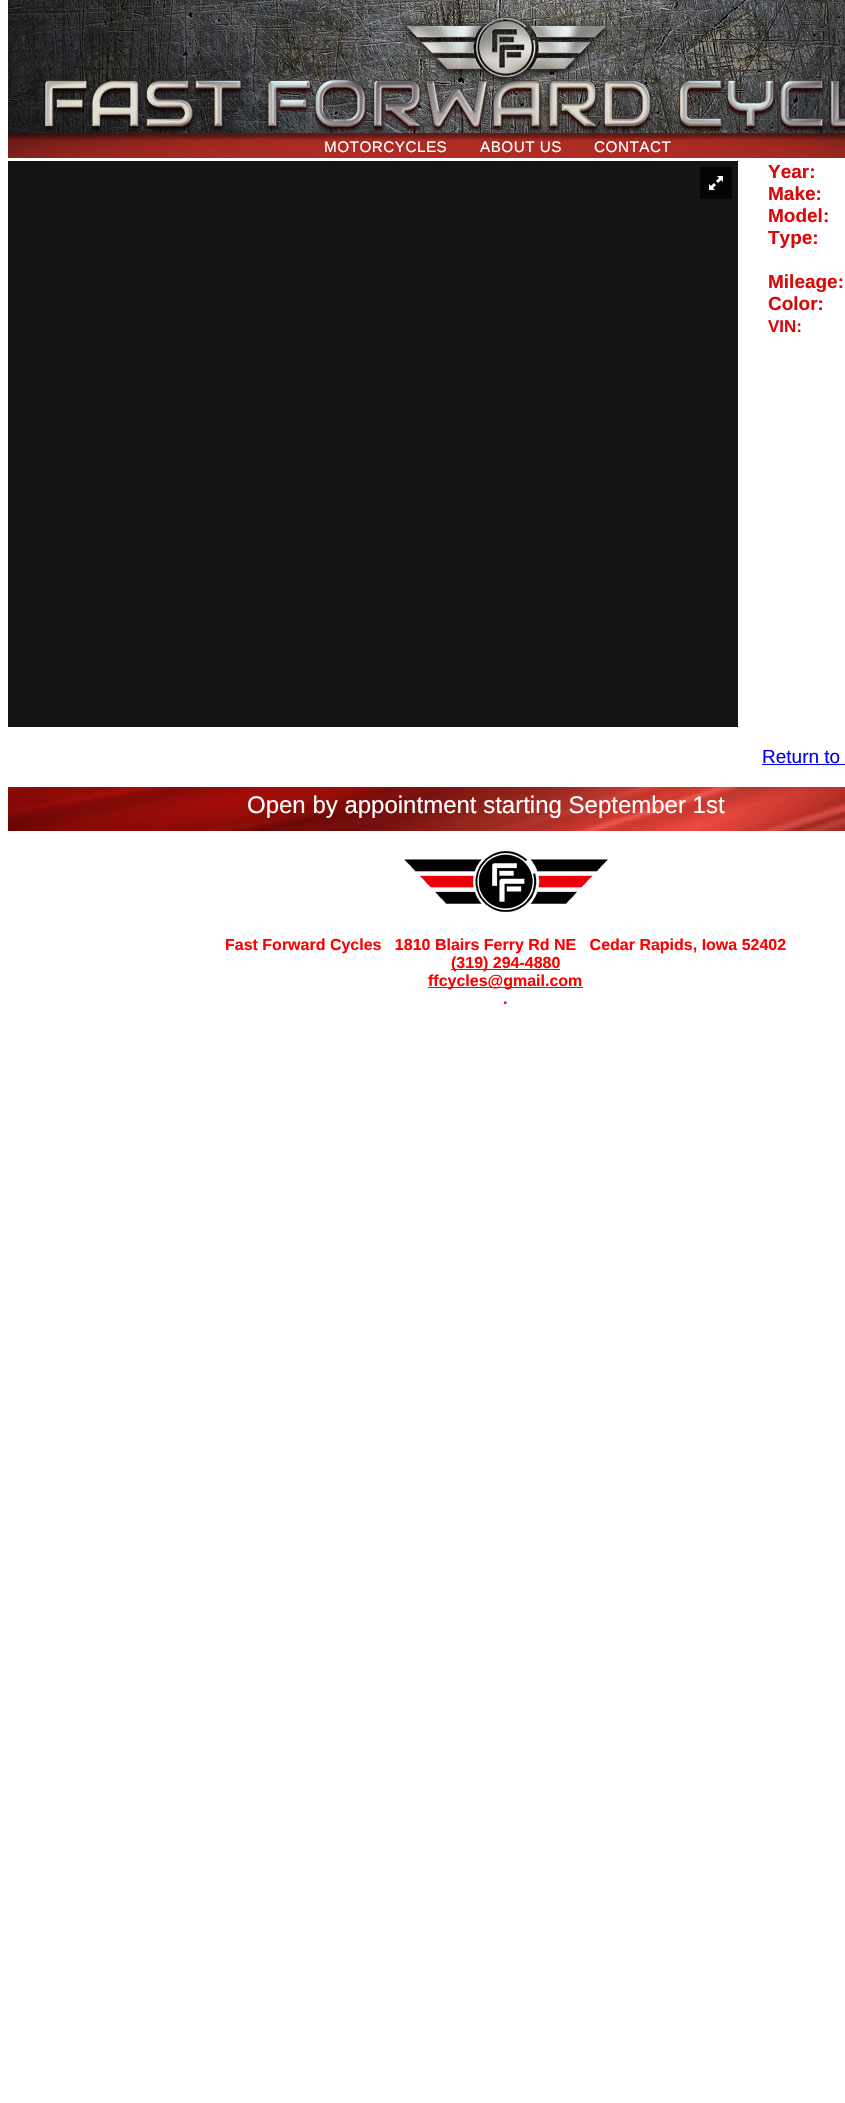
#include "include/core/SkBlurTypes.h"
#include "include/core/SkCanvas.h"
#include "include/core/SkData.h"
#include "include/core/SkFont.h"
#include "include/core/SkFontMgr.h"
#include "include/core/SkImage.h"
#include "include/core/SkMaskFilter.h"
#include "include/core/SkPaint.h"
#include "include/core/SkPathBuilder.h"
#include "include/core/SkTextBlob.h"
#include "include/effects/SkDashPathEffect.h"
#include "include/effects/SkGradientShader.h"
#include "include/utils/SkParsePath.h"

extern sk_sp<SkFontMgr> fontMgr;

void draw(SkCanvas* canvas) {
    SkPaint p;
    p.setAntiAlias(true);
    auto font = [&](const char* family, int weight, float size, bool italic = false) {
        SkFontStyle style(weight, SkFontStyle::kNormal_Width,
            italic ? SkFontStyle::kItalic_Slant : SkFontStyle::kUpright_Slant);
        SkFont result(fontMgr->matchFamilyStyle(family, style), size);
        result.setSubpixel(true);
        return result;
    };
    auto drawTracked = [&](const char* s, float x, float y, const SkFont& font, const SkPaint& ink, float letter, float word) {
        std::vector<SkGlyphID> glyphs(font.countText(s, strlen(s), SkTextEncoding::kUTF8));
        std::vector<float> xs(glyphs.size());
        font.textToGlyphs(s, strlen(s), SkTextEncoding::kUTF8, glyphs);
        font.getXPos(glyphs, xs, x);
        float extra = 0;
        for (size_t i = 0; i < glyphs.size(); i++) {
            xs[i] += extra;
            extra += letter + word * (glyphs[i] == font.unicharToGlyph(' '));
        }
        canvas->drawTextBlob(SkTextBlob::MakeFromPosHGlyphs(glyphs, xs, y, font), 0, 0, ink);
    };
    auto drawPhoto = [&](const char* path, float l, float t, float r, float b) {
        auto image = SkImages::DeferredFromEncodedData(SkData::MakeFromFileName(path));
        canvas->drawImageRect(image, SkRect::MakeLTRB(l, t, r, b), SkSamplingOptions());
    };
    canvas->clear(0xFFFFFFFF);
    drawPhoto("media/1.png", 8, 0, 845, 133);
    drawPhoto("media/2.png", 8, 133, 845, 158);
    auto font1 = font("Liberation Sans", 400, 15.25f);
    p.setColor(0xFFFFFFFF);
    {
        const struct { const char* s; float x, y; } items[] = {
            {"MOTORCYCLES", 324, 152},
            {"ABOUT US", 480, 152},
            {"CONTACT", 594, 152},
        };
        for (auto [s, x, y] : items) {
            drawTracked(s, x, y, font1, p, 0.5f, 0);
        }
    }
    p.setColor(0xFF151515);
    canvas->drawRect(SkRect::MakeLTRB(8, 161, 738, 727), p);
    p.setColor(0xFF050505);
    canvas->drawRoundRect(SkRect::MakeLTRB(700, 167, 732, 199), 2, 2, p);
    drawPhoto("media/3.png", 709, 176, 723, 190);
    auto font2 = font("Liberation Sans", 700, 19);
    p.setColor(0xFFD70808);
    {
        const struct { const char* s; float x, y; } items[] = {
            {"Year:", 768, 178},
            {"Make:", 768, 200},
            {"Model:", 768, 222},
            {"Type:", 768, 244},
            {"Mileage:", 768, 288},
            {"Color:", 768, 310},
        };
        for (auto [s, x, y] : items) {
            canvas->drawString(s, x, y, font2, p);
        }
    }
    auto font3 = font("Liberation Sans", 700, 17);
    canvas->drawString("VIN:", 768, 332, font3, p);
    auto font4 = font("Liberation Sans", 400, 19);
    p.setColor(0xFF0000EE);
    canvas->drawString("Return to", 762, 763, font4, p);
    canvas->drawRect(SkRect::MakeLTRB(762, 764, 845, 765), p);
    drawPhoto("media/4.png", 8, 787, 845, 831);
    auto font5 = font("Liberation Sans", 400, 24);
    p.setColor(0xFFFFFFFF);
    canvas->drawString("Open by appointment starting September 1st", 247, 813, font5, p);
    drawPhoto("media/5.png", 404, 851, 608, 912);
    auto font6 = font("Liberation Sans", 700, 16);
    p.setColor(0xFFFF0000);
    canvas->drawString("Fast Forward Cycles   1810 Blairs Ferry Rd NE   Cedar Rapids, Iowa 52402", 225, 950, font6, p);
    canvas->drawRect(SkRect::MakeLTRB(451, 969, 560, 970), p);
    canvas->drawString("(319) 294-4880", 451, 968, font6, p);
    canvas->drawRect(SkRect::MakeLTRB(428, 987, 583, 988), p);
    canvas->drawString("ffcycles@gmail.com", 428, 986, font6, p);
    canvas->drawString(".", 503, 1004, font6, p);
}
